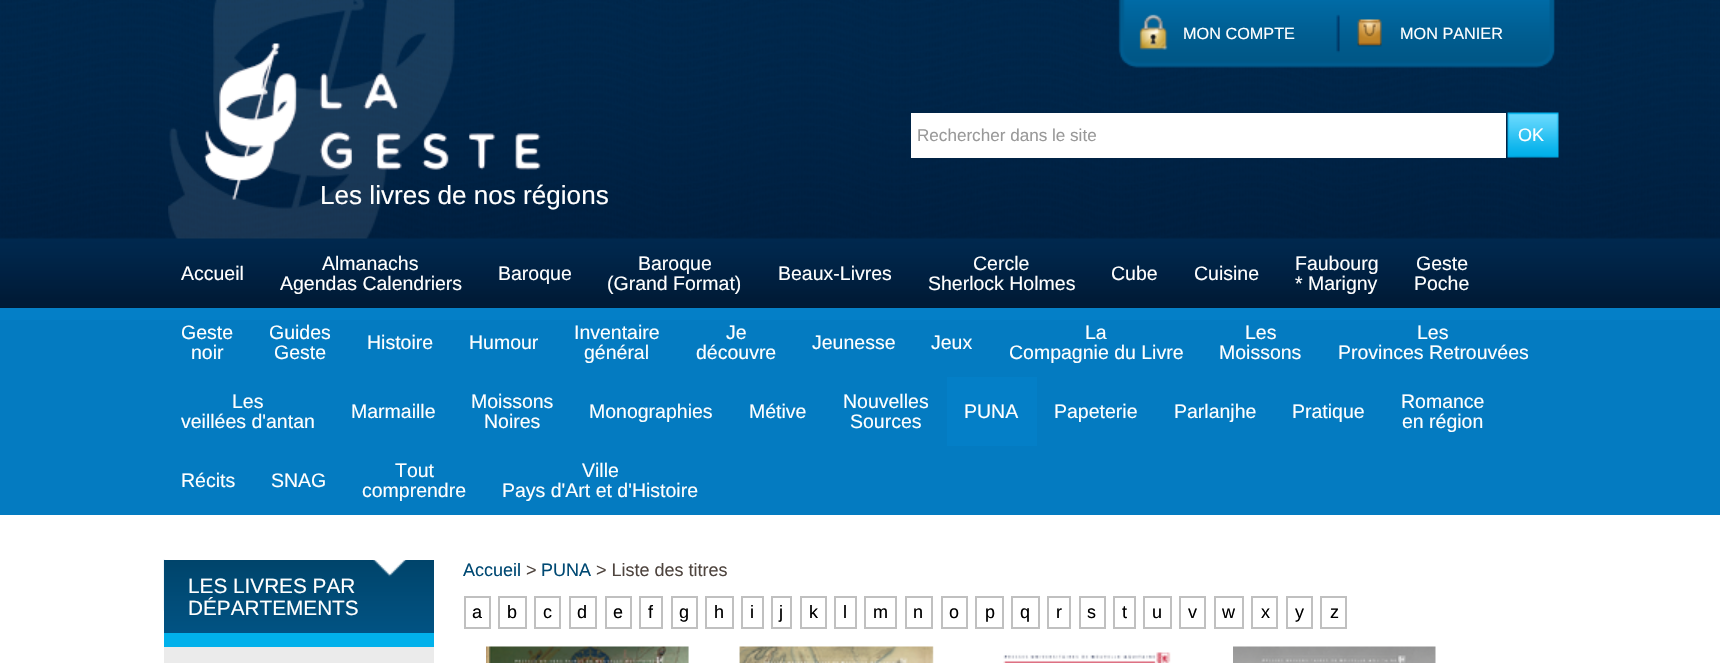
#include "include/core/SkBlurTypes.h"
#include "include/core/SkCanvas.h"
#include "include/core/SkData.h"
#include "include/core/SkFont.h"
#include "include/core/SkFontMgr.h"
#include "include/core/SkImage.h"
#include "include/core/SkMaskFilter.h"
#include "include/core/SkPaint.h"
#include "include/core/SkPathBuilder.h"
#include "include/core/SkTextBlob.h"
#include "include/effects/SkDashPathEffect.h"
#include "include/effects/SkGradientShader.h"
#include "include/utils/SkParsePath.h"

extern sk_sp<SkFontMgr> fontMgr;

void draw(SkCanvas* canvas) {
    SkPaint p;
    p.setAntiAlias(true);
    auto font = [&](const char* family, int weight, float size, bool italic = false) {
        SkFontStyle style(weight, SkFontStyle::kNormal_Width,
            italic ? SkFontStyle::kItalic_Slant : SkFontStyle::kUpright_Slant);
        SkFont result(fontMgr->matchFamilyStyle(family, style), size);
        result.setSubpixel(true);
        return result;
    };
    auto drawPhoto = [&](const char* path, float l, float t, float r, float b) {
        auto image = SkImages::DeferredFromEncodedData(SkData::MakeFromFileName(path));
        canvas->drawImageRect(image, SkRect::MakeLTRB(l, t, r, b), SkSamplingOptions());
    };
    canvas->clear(0xFF047BC1);
    drawPhoto("media/1.png", 0, 0, 1720, 308);
    p.setColor(0xFF047FC7);
    canvas->drawRect(SkRect::MakeLTRB(0, 308, 1720, 320), p);
    drawPhoto("media/2.png", 204, 43, 541, 200);
    drawPhoto("media/3.png", 1118, 0, 1555, 68);
    drawPhoto("media/4.png", 1139, 14, 1168, 50);
    auto font1 = font("Liberation Sans", 400, 16.25f);
    p.setColor(0xFFFFFFFF);
    canvas->drawString("MON COMPTE", 1183, 39, font1, p);
    drawPhoto("media/5.png", 1357, 19, 1382, 47);
    canvas->drawString("MON PANIER", 1400, 39, font1, p);
    canvas->drawRect(SkRect::MakeLTRB(911, 113, 1506, 158), p);
    auto font2 = font("Liberation Sans", 400, 17.1f);
    p.setColor(0xFF999999);
    canvas->drawString("Rechercher dans le site", 917, 141, font2, p);
    drawPhoto("media/6.png", 1507, 112, 1559, 158);
    auto font3 = font("Liberation Sans", 400, 18);
    p.setColor(0xFFFFFFFF);
    canvas->drawString("OK", 1518, 141, font3, p);
    drawPhoto("media/7.png", 168, 0, 455, 239);
    auto font4 = font("Liberation Sans", 400, 26.1f);
    canvas->drawString("Les livres de nos régions", 320, 204, font4, p);
    auto font5 = font("Liberation Sans", 400, 19.5f);
    {
        const struct { const char* s; float x, y; } items[] = {
            {"Accueil", 181, 280},
            {"Almanachs", 322, 270},
            {"Agendas Calendriers", 280, 290},
            {"Baroque", 498, 280},
            {"Baroque", 638, 270},
            {"(Grand Format)", 607, 290},
            {"Beaux-Livres", 778, 280},
            {"Cercle", 973, 270},
            {"Sherlock Holmes", 928, 290},
            {"Cube", 1111, 280},
            {"Cuisine", 1194, 280},
            {"Faubourg", 1295, 270},
            {"* Marigny", 1295, 290},
            {"Geste", 1416, 270},
            {"Poche", 1414, 290},
            {"Geste", 181, 339},
            {"noir", 191, 359},
            {"Guides", 269, 339},
            {"Geste", 274, 359},
            {"Histoire", 367, 349},
            {"Humour", 469, 349},
            {"Inventaire", 574, 339},
            {"général", 584, 359},
            {"Je", 726, 339},
            {"découvre", 696, 359},
            {"Jeunesse", 812, 349},
            {"Jeux", 931, 349},
            {"La", 1085, 339},
            {"Compagnie du Livre", 1009, 359},
            {"Les", 1245, 339},
            {"Moissons", 1219, 359},
            {"Les", 1417, 339},
            {"Provinces Retrouvées", 1338, 359},
            {"Les", 232, 408},
            {"veillées d'antan", 181, 428},
            {"Marmaille", 351, 418},
            {"Moissons", 471, 408},
            {"Noires", 484, 428},
            {"Monographies", 589, 418},
            {"Métive", 749, 418},
            {"Nouvelles", 843, 408},
            {"Sources", 850, 428},
        };
        for (auto [s, x, y] : items) {
            canvas->drawString(s, x, y, font5, p);
        }
    }
    p.setColor(0xFF047FC7);
    canvas->drawRect(SkRect::MakeLTRB(947, 377, 1037, 446), p);
    p.setColor(0xFFFFFFFF);
    {
        const struct { const char* s; float x, y; } items[] = {
            {"PUNA", 964, 418},
            {"Papeterie", 1054, 418},
            {"Parlanjhe", 1174, 418},
            {"Pratique", 1292, 418},
            {"Romance", 1401, 408},
            {"en région", 1402, 428},
            {"Récits", 181, 487},
            {"SNAG", 271, 487},
            {"Tout", 395, 477},
            {"comprendre", 362, 497},
            {"Ville", 582, 477},
            {"Pays d'Art et d'Histoire", 502, 497},
        };
        for (auto [s, x, y] : items) {
            canvas->drawString(s, x, y, font5, p);
        }
    }
    canvas->drawRect(SkRect::MakeLTRB(0, 515, 1720, 663), p);
    p.setColor(0xFFEBEBEB);
    canvas->drawRect(SkRect::MakeLTRB(164, 647, 434, 663), p);
    {
        const SkColor colors[] = {0xFF00446B, 0xFF015383};
        const float stops[] = {0, 1};
        const SkPoint ends[] = {{299, 560}, {299, 633}};
        p.setShader(SkGradientShader::MakeLinear(ends, colors, stops, 2, SkTileMode::kClamp));
        p.setAlpha(255);
    }
    canvas->drawRect(SkRect::MakeLTRB(164, 560, 434, 633), p);
    p.setShader(nullptr);
    p.setColor(0xFF01B1EB);
    canvas->drawRect(SkRect::MakeLTRB(164, 633, 434, 647), p);
    drawPhoto("media/8.png", 163, 559, 407, 611);
    auto font6 = font("Liberation Sans", 400, 20.75f);
    p.setColor(0xFFFFFFFF);
    canvas->drawString("LES LIVRES PAR", 188, 593, font6, p);
    canvas->drawString("DÉPARTEMENTS", 188, 615, font6, p);
    p.setColor(0xFF004973);
    canvas->drawString("Accueil", 463, 576, font3, p);
    p.setColor(0xFF4F453F);
    canvas->drawString(">", 526, 576, font3, p);
    p.setColor(0xFF004973);
    canvas->drawString("PUNA", 541, 576, font3, p);
    p.setColor(0xFF4F453F);
    canvas->drawString("> Liste des titres", 596, 576, font3, p);
    p.setStyle(SkPaint::kStroke_Style);
    p.setStrokeWidth(2);
    p.setColor(0xFFC0C0C0);
    canvas->drawRect(SkRect::MakeLTRB(465, 597, 490, 628), p);
    p.setStyle(SkPaint::kFill_Style);
    p.setColor(0xFF000000);
    canvas->drawString("a", 472, 618, font3, p);
    p.setStyle(SkPaint::kStroke_Style);
    p.setColor(0xFFC0C0C0);
    canvas->drawRect(SkRect::MakeLTRB(499, 597, 526, 628), p);
    p.setStyle(SkPaint::kFill_Style);
    p.setColor(0xFF000000);
    canvas->drawString("b", 507, 618, font3, p);
    p.setStyle(SkPaint::kStroke_Style);
    p.setColor(0xFFC0C0C0);
    canvas->drawRect(SkRect::MakeLTRB(535, 597, 560, 628), p);
    p.setStyle(SkPaint::kFill_Style);
    p.setColor(0xFF000000);
    canvas->drawString("c", 543, 618, font3, p);
    p.setStyle(SkPaint::kStroke_Style);
    p.setColor(0xFFC0C0C0);
    canvas->drawRect(SkRect::MakeLTRB(570, 597, 596, 628), p);
    p.setStyle(SkPaint::kFill_Style);
    p.setColor(0xFF000000);
    canvas->drawString("d", 577, 618, font3, p);
    p.setStyle(SkPaint::kStroke_Style);
    p.setColor(0xFFC0C0C0);
    canvas->drawRect(SkRect::MakeLTRB(606, 597, 631, 628), p);
    p.setStyle(SkPaint::kFill_Style);
    p.setColor(0xFF000000);
    canvas->drawString("e", 613, 618, font3, p);
    p.setStyle(SkPaint::kStroke_Style);
    p.setColor(0xFFC0C0C0);
    canvas->drawRect(SkRect::MakeLTRB(640, 597, 662, 628), p);
    p.setStyle(SkPaint::kFill_Style);
    p.setColor(0xFF000000);
    canvas->drawString("f", 648, 618, font3, p);
    p.setStyle(SkPaint::kStroke_Style);
    p.setColor(0xFFC0C0C0);
    canvas->drawRect(SkRect::MakeLTRB(672, 597, 697, 628), p);
    p.setStyle(SkPaint::kFill_Style);
    p.setColor(0xFF000000);
    canvas->drawString("g", 679, 618, font3, p);
    p.setStyle(SkPaint::kStroke_Style);
    p.setColor(0xFFC0C0C0);
    canvas->drawRect(SkRect::MakeLTRB(706, 597, 733, 628), p);
    p.setStyle(SkPaint::kFill_Style);
    p.setColor(0xFF000000);
    canvas->drawString("h", 714, 618, font3, p);
    p.setStyle(SkPaint::kStroke_Style);
    p.setColor(0xFFC0C0C0);
    canvas->drawRect(SkRect::MakeLTRB(742, 597, 763, 628), p);
    p.setStyle(SkPaint::kFill_Style);
    p.setColor(0xFF000000);
    canvas->drawString("i", 750, 618, font3, p);
    p.setStyle(SkPaint::kStroke_Style);
    p.setColor(0xFFC0C0C0);
    canvas->drawRect(SkRect::MakeLTRB(772, 597, 791, 628), p);
    p.setStyle(SkPaint::kFill_Style);
    p.setColor(0xFF000000);
    canvas->drawString("j", 779, 618, font3, p);
    p.setStyle(SkPaint::kStroke_Style);
    p.setColor(0xFFC0C0C0);
    canvas->drawRect(SkRect::MakeLTRB(801, 597, 826, 628), p);
    p.setStyle(SkPaint::kFill_Style);
    p.setColor(0xFF000000);
    canvas->drawString("k", 809, 618, font3, p);
    p.setStyle(SkPaint::kStroke_Style);
    p.setColor(0xFFC0C0C0);
    canvas->drawRect(SkRect::MakeLTRB(835, 597, 856, 628), p);
    p.setStyle(SkPaint::kFill_Style);
    p.setColor(0xFF000000);
    canvas->drawString("l", 843, 618, font3, p);
    p.setStyle(SkPaint::kStroke_Style);
    p.setColor(0xFFC0C0C0);
    canvas->drawRect(SkRect::MakeLTRB(865, 597, 896, 628), p);
    p.setStyle(SkPaint::kFill_Style);
    p.setColor(0xFF000000);
    canvas->drawString("m", 873, 618, font3, p);
    p.setStyle(SkPaint::kStroke_Style);
    p.setColor(0xFFC0C0C0);
    canvas->drawRect(SkRect::MakeLTRB(906, 597, 932, 628), p);
    p.setStyle(SkPaint::kFill_Style);
    p.setColor(0xFF000000);
    canvas->drawString("n", 913, 618, font3, p);
    p.setStyle(SkPaint::kStroke_Style);
    p.setColor(0xFFC0C0C0);
    canvas->drawRect(SkRect::MakeLTRB(942, 597, 967, 628), p);
    p.setStyle(SkPaint::kFill_Style);
    p.setColor(0xFF000000);
    canvas->drawString("o", 949, 618, font3, p);
    p.setStyle(SkPaint::kStroke_Style);
    p.setColor(0xFFC0C0C0);
    canvas->drawRect(SkRect::MakeLTRB(976, 597, 1003, 628), p);
    p.setStyle(SkPaint::kFill_Style);
    p.setColor(0xFF000000);
    canvas->drawString("p", 985, 618, font3, p);
    p.setStyle(SkPaint::kStroke_Style);
    p.setColor(0xFFC0C0C0);
    canvas->drawRect(SkRect::MakeLTRB(1012, 597, 1039, 628), p);
    p.setStyle(SkPaint::kFill_Style);
    p.setColor(0xFF000000);
    canvas->drawString("q", 1020, 618, font3, p);
    p.setStyle(SkPaint::kStroke_Style);
    p.setColor(0xFFC0C0C0);
    canvas->drawRect(SkRect::MakeLTRB(1048, 597, 1070, 628), p);
    p.setStyle(SkPaint::kFill_Style);
    p.setColor(0xFF000000);
    canvas->drawString("r", 1056, 618, font3, p);
    p.setStyle(SkPaint::kStroke_Style);
    p.setColor(0xFFC0C0C0);
    canvas->drawRect(SkRect::MakeLTRB(1080, 597, 1105, 628), p);
    p.setStyle(SkPaint::kFill_Style);
    p.setColor(0xFF000000);
    canvas->drawString("s", 1087, 618, font3, p);
    p.setStyle(SkPaint::kStroke_Style);
    p.setColor(0xFFC0C0C0);
    canvas->drawRect(SkRect::MakeLTRB(1114, 597, 1135, 628), p);
    p.setStyle(SkPaint::kFill_Style);
    p.setColor(0xFF000000);
    canvas->drawString("t", 1122, 618, font3, p);
    p.setStyle(SkPaint::kStroke_Style);
    p.setColor(0xFFC0C0C0);
    canvas->drawRect(SkRect::MakeLTRB(1144, 597, 1171, 628), p);
    p.setStyle(SkPaint::kFill_Style);
    p.setColor(0xFF000000);
    canvas->drawString("u", 1152, 618, font3, p);
    p.setStyle(SkPaint::kStroke_Style);
    p.setColor(0xFFC0C0C0);
    canvas->drawRect(SkRect::MakeLTRB(1180, 597, 1205, 628), p);
    p.setStyle(SkPaint::kFill_Style);
    p.setColor(0xFF000000);
    canvas->drawString("v", 1188, 618, font3, p);
    p.setStyle(SkPaint::kStroke_Style);
    p.setColor(0xFFC0C0C0);
    canvas->drawRect(SkRect::MakeLTRB(1215, 597, 1243, 628), p);
    p.setStyle(SkPaint::kFill_Style);
    p.setColor(0xFF000000);
    canvas->drawString("w", 1222, 618, font3, p);
    p.setStyle(SkPaint::kStroke_Style);
    p.setColor(0xFFC0C0C0);
    canvas->drawRect(SkRect::MakeLTRB(1252, 597, 1277, 628), p);
    p.setStyle(SkPaint::kFill_Style);
    p.setColor(0xFF000000);
    canvas->drawString("x", 1261, 618, font3, p);
    p.setStyle(SkPaint::kStroke_Style);
    p.setColor(0xFFC0C0C0);
    canvas->drawRect(SkRect::MakeLTRB(1287, 597, 1312, 628), p);
    p.setStyle(SkPaint::kFill_Style);
    p.setColor(0xFF000000);
    canvas->drawString("y", 1295, 618, font3, p);
    p.setStyle(SkPaint::kStroke_Style);
    p.setColor(0xFFC0C0C0);
    canvas->drawRect(SkRect::MakeLTRB(1321, 597, 1346, 628), p);
    p.setStyle(SkPaint::kFill_Style);
    p.setColor(0xFF000000);
    canvas->drawString("z", 1330, 618, font3, p);
    drawPhoto("media/9.png", 486, 646, 689, 663);
    drawPhoto("media/10.png", 739, 646, 934, 663);
    drawPhoto("media/11.png", 1003, 652, 1171, 663);
    drawPhoto("media/12.png", 1233, 646, 1436, 663);
}
